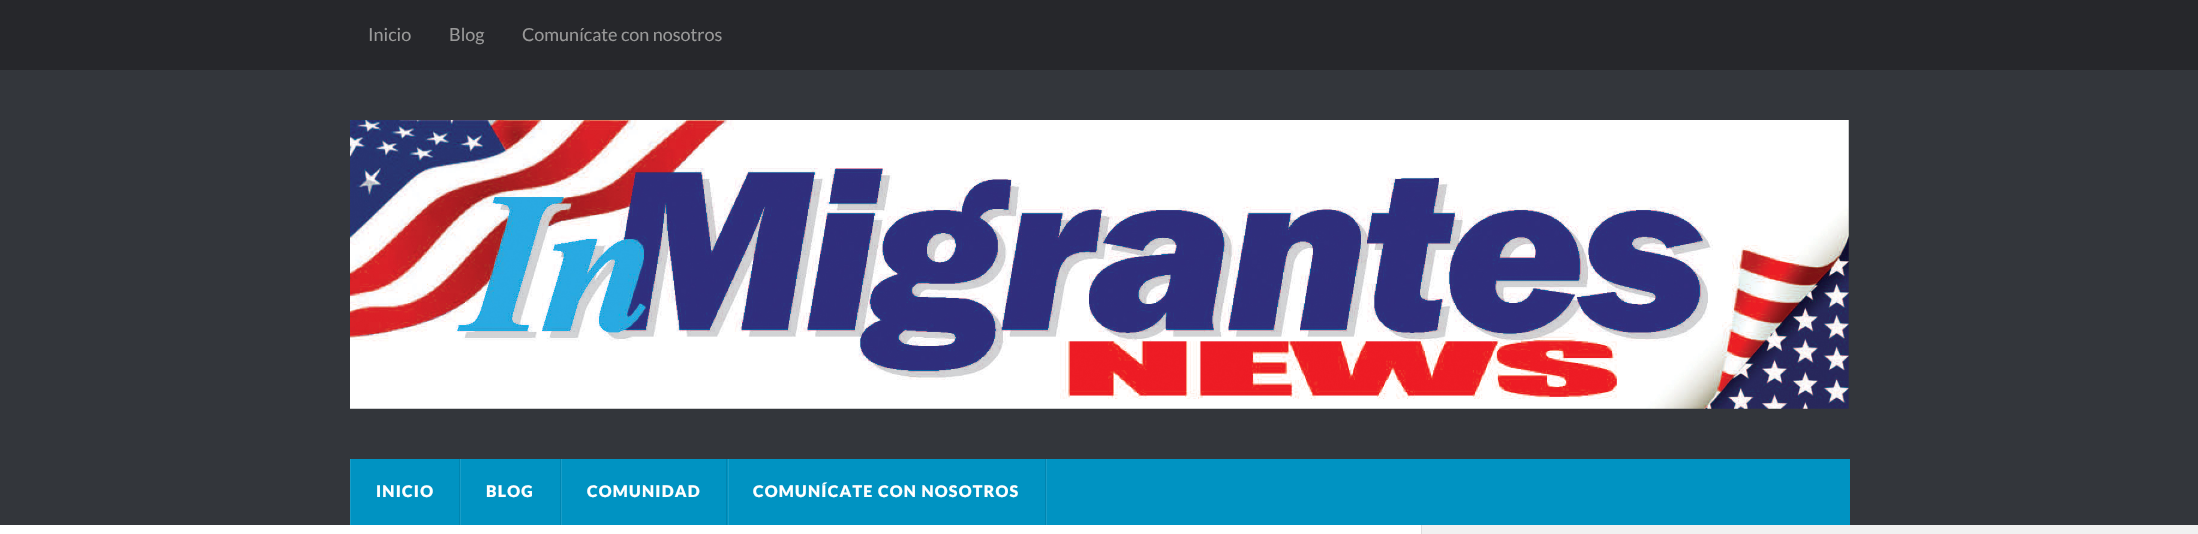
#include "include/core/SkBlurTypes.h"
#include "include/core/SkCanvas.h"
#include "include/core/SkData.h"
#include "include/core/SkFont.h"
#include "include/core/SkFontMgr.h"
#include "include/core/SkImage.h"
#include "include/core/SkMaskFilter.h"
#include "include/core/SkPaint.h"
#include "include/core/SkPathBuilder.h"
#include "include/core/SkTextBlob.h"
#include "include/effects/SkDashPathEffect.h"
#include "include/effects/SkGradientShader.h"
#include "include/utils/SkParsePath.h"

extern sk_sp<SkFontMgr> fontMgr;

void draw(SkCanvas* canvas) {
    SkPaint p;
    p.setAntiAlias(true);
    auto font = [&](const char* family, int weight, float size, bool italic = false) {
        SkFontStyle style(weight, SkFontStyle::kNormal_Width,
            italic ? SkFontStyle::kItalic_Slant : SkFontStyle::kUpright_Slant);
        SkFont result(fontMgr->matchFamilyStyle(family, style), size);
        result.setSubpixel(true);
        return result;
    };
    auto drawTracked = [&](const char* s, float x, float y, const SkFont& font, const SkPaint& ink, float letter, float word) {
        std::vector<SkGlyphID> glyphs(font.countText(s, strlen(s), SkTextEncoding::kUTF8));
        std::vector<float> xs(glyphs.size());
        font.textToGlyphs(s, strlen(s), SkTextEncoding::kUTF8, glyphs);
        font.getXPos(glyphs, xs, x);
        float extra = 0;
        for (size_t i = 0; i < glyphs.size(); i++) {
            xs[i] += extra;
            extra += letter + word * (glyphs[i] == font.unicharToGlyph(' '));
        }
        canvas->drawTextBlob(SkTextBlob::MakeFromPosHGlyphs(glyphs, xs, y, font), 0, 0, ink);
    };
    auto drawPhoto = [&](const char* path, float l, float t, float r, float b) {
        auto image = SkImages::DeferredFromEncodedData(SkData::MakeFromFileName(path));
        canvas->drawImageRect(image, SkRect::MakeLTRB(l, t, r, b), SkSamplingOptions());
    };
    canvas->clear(0xFFF1F1F1);
    p.setColor(0xFF26272B);
    canvas->drawRect(SkRect::MakeLTRB(0, 0, 2198, 70), p);
    auto font1 = font("Lato", 400, 18);
    p.setColor(0xFF999999);
    {
        const struct { const char* s; float x, y; } items[] = {
            {"Inicio", 368, 41},
            {"Blog", 449, 41},
            {"Comunícate con nosotros", 522, 41},
        };
        for (auto [s, x, y] : items) {
            canvas->drawString(s, x, y, font1, p);
        }
    }
    p.setColor(0xFF33363B);
    canvas->drawRect(SkRect::MakeLTRB(0, 70, 2198, 525), p);
    drawPhoto("media/1.png", 350, 120, 1849, 409);
    {
        const struct { float l, t, r, b; SkColor color; } items[] = {
            {351, 459, 1850, 525, 0xFF0093C2},
            {459, 459, 460, 525, 0xFF0084AF},
            {350, 459, 351, 525, 0xFF1A9EC8},
        };
        for (auto [l, t, r, b, color] : items) {
            p.setColor(color);
            canvas->drawRect(SkRect::MakeLTRB(l, t, r, b), p);
        }
    }
    auto font2 = font("Lato", 900, 16);
    p.setColor(0xFFFFFFFF);
    drawTracked("INICIO", 376, 497, font2, p, 1.25f, 0);
    p.setColor(0xFF0084AF);
    canvas->drawRect(SkRect::MakeLTRB(560, 459, 561, 525), p);
    p.setColor(0xFF1A9EC8);
    canvas->drawRect(SkRect::MakeLTRB(460, 459, 461, 525), p);
    p.setColor(0xFFFFFFFF);
    drawTracked("BLOG", 486, 497, font2, p, 1.25f, 0);
    p.setColor(0xFF0084AF);
    canvas->drawRect(SkRect::MakeLTRB(726, 459, 727, 525), p);
    p.setColor(0xFF1A9EC8);
    canvas->drawRect(SkRect::MakeLTRB(561, 459, 562, 525), p);
    p.setColor(0xFFFFFFFF);
    drawTracked("COMUNIDAD", 587, 497, font2, p, 1.25f, 0);
    p.setColor(0xFF0084AF);
    canvas->drawRect(SkRect::MakeLTRB(1045, 459, 1046, 525), p);
    p.setColor(0xFF1A9EC8);
    canvas->drawRect(SkRect::MakeLTRB(728, 459, 729, 525), p);
    p.setColor(0xFFFFFFFF);
    drawTracked("COMUNÍCATE CON NOSOTROS", 753, 497, font2, p, 1.25f, 0);
    {
        const struct { float l, t, r, b; SkColor color; } items[] = {
            {1046, 459, 1047, 525, 0xFF1A9EC8},
            {0, 525, 1421, 534, 0xFFFFFFFF},
            {1421, 525, 1422, 534, 0xFFDDDDDD},
        };
        for (auto [l, t, r, b, color] : items) {
            p.setColor(color);
            canvas->drawRect(SkRect::MakeLTRB(l, t, r, b), p);
        }
    }
}
